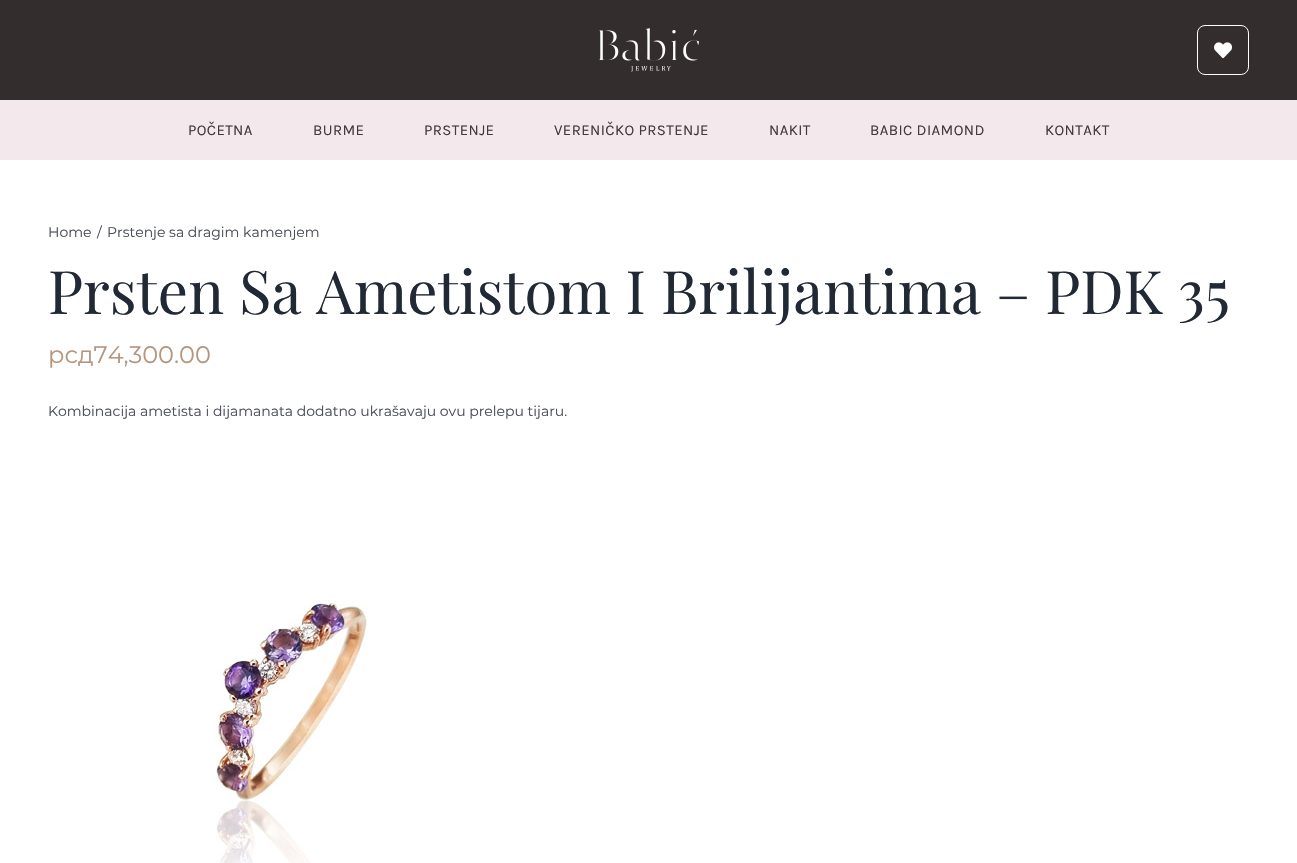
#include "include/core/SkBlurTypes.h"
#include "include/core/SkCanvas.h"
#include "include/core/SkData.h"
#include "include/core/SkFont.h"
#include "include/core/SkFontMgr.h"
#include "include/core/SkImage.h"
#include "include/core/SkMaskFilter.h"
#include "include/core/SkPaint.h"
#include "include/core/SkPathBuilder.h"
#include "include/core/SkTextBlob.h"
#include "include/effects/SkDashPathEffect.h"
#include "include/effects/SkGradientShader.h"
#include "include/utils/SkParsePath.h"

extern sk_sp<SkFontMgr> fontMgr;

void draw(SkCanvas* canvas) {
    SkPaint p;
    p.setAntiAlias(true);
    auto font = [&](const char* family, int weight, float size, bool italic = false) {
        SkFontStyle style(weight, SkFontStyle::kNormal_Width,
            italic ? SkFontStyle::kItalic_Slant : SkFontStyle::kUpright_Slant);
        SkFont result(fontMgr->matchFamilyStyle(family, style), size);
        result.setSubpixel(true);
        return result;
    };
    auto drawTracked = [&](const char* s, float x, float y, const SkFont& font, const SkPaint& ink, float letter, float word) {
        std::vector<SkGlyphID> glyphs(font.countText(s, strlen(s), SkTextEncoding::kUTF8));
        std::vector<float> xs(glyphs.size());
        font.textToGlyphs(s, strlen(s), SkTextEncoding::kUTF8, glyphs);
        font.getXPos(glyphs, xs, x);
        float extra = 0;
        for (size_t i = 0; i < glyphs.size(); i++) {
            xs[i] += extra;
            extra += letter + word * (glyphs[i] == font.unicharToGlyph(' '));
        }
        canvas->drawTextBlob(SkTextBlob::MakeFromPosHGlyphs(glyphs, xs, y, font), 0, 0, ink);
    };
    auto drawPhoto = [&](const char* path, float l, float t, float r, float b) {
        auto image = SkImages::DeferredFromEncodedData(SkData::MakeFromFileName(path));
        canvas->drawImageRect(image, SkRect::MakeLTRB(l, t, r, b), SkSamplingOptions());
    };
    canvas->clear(0xFFFFFFFF);
    p.setColor(0xFF342D2D);
    canvas->drawRect(SkRect::MakeLTRB(0, 0, 1297, 100), p);
    drawPhoto("media/1.png", 599, 28, 699, 72);
    p.setStyle(SkPaint::kStroke_Style);
    p.setStrokeWidth(1);
    p.setColor(0xFFFFFFFF);
    canvas->drawRoundRect(SkRect::MakeLTRB(1197.5f, 25.5f, 1248.5f, 74.5f), 7.5f, 7.5f, p);
    drawPhoto("media/2.png", 1214, 42, 1232, 59);
    p.setStyle(SkPaint::kFill_Style);
    p.setColor(0xFFF3E8EB);
    canvas->drawRect(SkRect::MakeLTRB(0, 100, 1297, 160), p);
    auto font1 = font("Karla", 400, 15);
    p.setColor(0xFF443A3B);
    {
        const struct { const char* s; float x, y; } items[] = {
            {"POČETNA", 188, 135},
            {"BURME", 313, 135},
            {"PRSTENJE", 424, 135},
            {"VERENIČKO PRSTENJE", 554, 135},
            {"NAKIT", 769, 135},
            {"BABIC DIAMOND", 870, 135},
            {"KONTAKT", 1045, 135},
        };
        for (auto [s, x, y] : items) {
            drawTracked(s, x, y, font1, p, 0.4f, 0);
        }
    }
    auto font2 = font("Montserrat", 400, 14);
    p.setColor(0xFF4A4E57);
    {
        const struct { const char* s; float x, y; } items[] = {
            {"Home", 48, 237},
            {"/", 97, 237},
            {"Prstenje sa dragim kamenjem", 107, 237},
        };
        for (auto [s, x, y] : items) {
            canvas->drawString(s, x, y, font2, p);
        }
    }
    auto font3 = font("Playfair Display", 400, 60);
    p.setColor(0xFF212934);
    canvas->drawString("Prsten Sa Ametistom I Brilijantima – PDK 35", 48, 314, font3, p);
    auto font4 = font("Montserrat", 400, 24);
    p.setColor(0xFFB4967E);
    canvas->drawString("рсд74,300.00", 48, 363, font4, p);
    p.setColor(0xFF4A4E57);
    canvas->drawString("Kombinacija ametista i dijamanata dodatno ukrašavaju ovu prelepu tijaru.", 48, 416, font2, p);
    drawPhoto("media/3.png", 216, 603, 368, 863);
}
